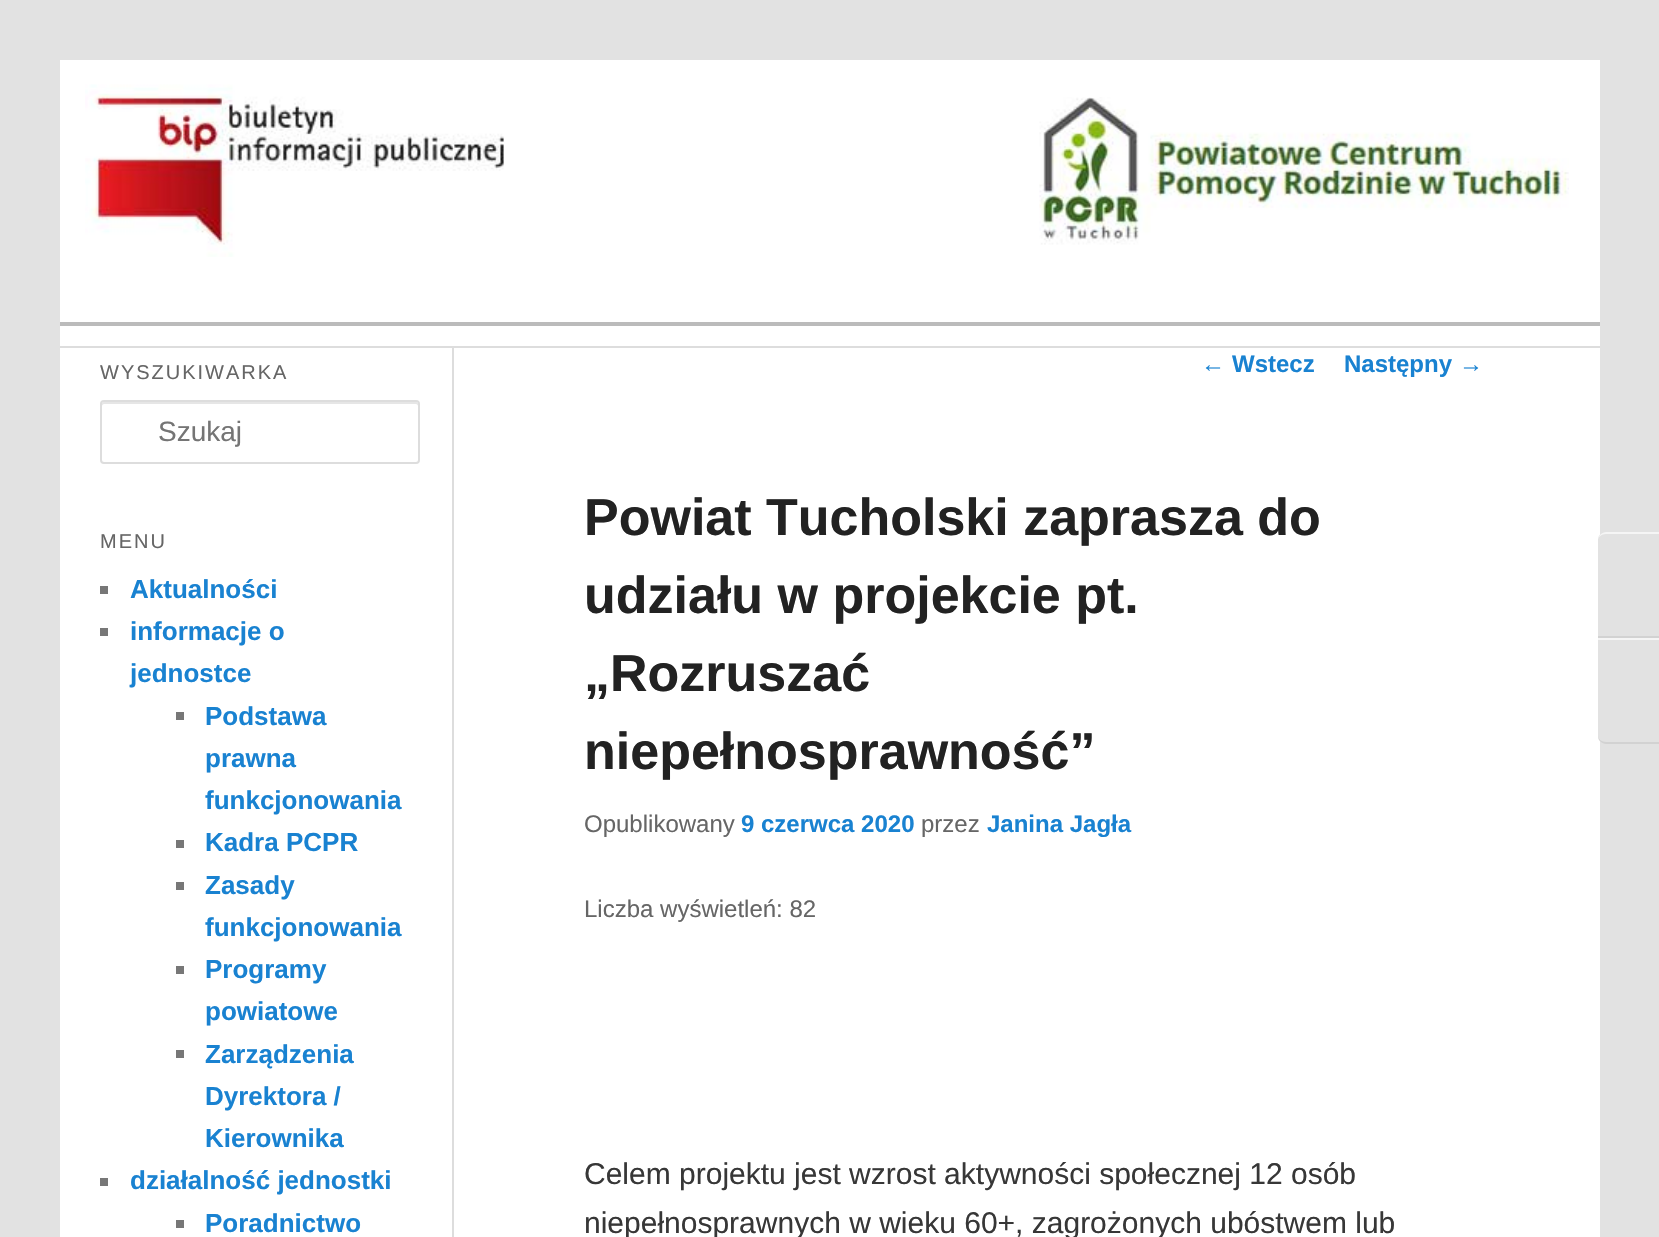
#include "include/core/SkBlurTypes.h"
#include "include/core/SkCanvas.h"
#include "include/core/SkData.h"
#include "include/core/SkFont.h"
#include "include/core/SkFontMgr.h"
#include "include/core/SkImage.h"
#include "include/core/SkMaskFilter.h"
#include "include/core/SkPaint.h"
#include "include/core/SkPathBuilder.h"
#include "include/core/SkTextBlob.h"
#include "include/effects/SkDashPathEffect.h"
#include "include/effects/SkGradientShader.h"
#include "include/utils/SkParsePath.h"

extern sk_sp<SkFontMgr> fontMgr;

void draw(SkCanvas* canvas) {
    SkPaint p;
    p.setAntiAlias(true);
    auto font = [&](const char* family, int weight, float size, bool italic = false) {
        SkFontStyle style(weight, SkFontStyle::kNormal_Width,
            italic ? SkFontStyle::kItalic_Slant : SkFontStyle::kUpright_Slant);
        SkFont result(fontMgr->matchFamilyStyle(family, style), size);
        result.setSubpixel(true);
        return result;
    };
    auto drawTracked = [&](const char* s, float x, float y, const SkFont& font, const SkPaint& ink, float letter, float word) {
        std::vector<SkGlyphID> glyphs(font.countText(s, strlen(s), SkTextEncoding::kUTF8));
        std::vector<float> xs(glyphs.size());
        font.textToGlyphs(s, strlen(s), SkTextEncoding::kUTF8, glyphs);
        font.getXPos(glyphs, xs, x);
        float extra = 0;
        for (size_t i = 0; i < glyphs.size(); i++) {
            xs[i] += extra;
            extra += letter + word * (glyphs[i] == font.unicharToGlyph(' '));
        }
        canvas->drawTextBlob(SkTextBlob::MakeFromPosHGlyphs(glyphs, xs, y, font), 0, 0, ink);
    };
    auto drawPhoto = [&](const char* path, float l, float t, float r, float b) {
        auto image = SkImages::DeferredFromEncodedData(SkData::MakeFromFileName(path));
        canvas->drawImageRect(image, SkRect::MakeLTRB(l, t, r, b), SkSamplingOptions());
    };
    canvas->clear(0xFFE2E2E2);
    p.setColor(0xFFFFFFFF);
    canvas->drawRect(SkRect::MakeLTRB(60, 60, 1600, 1237), p);
    drawPhoto("media/1.png", 85, 84, 504, 257);
    drawPhoto("media/2.png", 1039, 97, 1569, 245);
    {
        const struct { float l, t, r, b; SkColor color; } items[] = {
            {60, 322, 1600, 326, 0xFFBBBBBB},
            {60, 346, 1600, 348, 0xFFDDDDDD},
            {452, 346, 454, 1237, 0xFFDDDDDD},
        };
        for (auto [l, t, r, b, color] : items) {
            p.setColor(color);
            canvas->drawRect(SkRect::MakeLTRB(l, t, r, b), p);
        }
    }
    auto font1 = font("Liberation Sans", 400, 20);
    p.setColor(0xFF666666);
    drawTracked("WYSZUKIWARKA", 100, 379, font1, p, 2, 0);
    p.setColor(0xFFE6E6E6);
    canvas->drawPath(SkPathBuilder().moveTo(104, 404).lineTo(416, 404).cubicTo(417, 404, 418, 405, 418, 406).lineTo(418, 404).cubicTo(418, 403, 417, 402, 416, 402).lineTo(104, 402).cubicTo(103, 402, 102, 403, 102, 404).lineTo(102, 406).cubicTo(102, 405, 103, 404, 104, 404).close().detach(), p);
    p.setStyle(SkPaint::kStroke_Style);
    p.setStrokeWidth(2);
    p.setColor(0xFFDDDDDD);
    canvas->drawRoundRect(SkRect::MakeLTRB(101, 401, 419, 463), 3, 3, p);
    auto font2 = font("Liberation Sans", 400, 28);
    p.setStyle(SkPaint::kFill_Style);
    p.setColor(0xFF757575);
    canvas->drawString("Szukaj", 158, 441, font2, p);
    p.setColor(0xFF666666);
    drawTracked("MENU", 100, 548, font1, p, 2, 0);
    p.setColor(0xFF777777);
    canvas->drawRect(SkRect::MakeLTRB(100, 586, 108, 594), p);
    auto font3 = font("Liberation Sans", 700, 26);
    p.setColor(0xFF1982D1);
    canvas->drawString("Aktualności", 130, 598, font3, p);
    p.setColor(0xFF777777);
    canvas->drawRect(SkRect::MakeLTRB(100, 628, 108, 636), p);
    p.setColor(0xFF1982D1);
    canvas->drawString("informacje o", 130, 640, font3, p);
    canvas->drawString("jednostce", 130, 682, font3, p);
    p.setColor(0xFF777777);
    canvas->drawRect(SkRect::MakeLTRB(176, 712, 184, 720), p);
    p.setColor(0xFF1982D1);
    {
        const struct { const char* s; float x, y; } items[] = {
            {"Podstawa", 205, 725},
            {"prawna", 205, 767},
            {"funkcjonowania", 205, 809},
        };
        for (auto [s, x, y] : items) {
            canvas->drawString(s, x, y, font3, p);
        }
    }
    p.setColor(0xFF777777);
    canvas->drawRect(SkRect::MakeLTRB(176, 840, 184, 848), p);
    p.setColor(0xFF1982D1);
    canvas->drawString("Kadra PCPR", 205, 851, font3, p);
    p.setColor(0xFF777777);
    canvas->drawRect(SkRect::MakeLTRB(176, 882, 184, 890), p);
    p.setColor(0xFF1982D1);
    canvas->drawString("Zasady", 205, 894, font3, p);
    canvas->drawString("funkcjonowania", 205, 936, font3, p);
    p.setColor(0xFF777777);
    canvas->drawRect(SkRect::MakeLTRB(176, 966, 184, 974), p);
    p.setColor(0xFF1982D1);
    canvas->drawString("Programy", 205, 978, font3, p);
    canvas->drawString("powiatowe", 205, 1020, font3, p);
    p.setColor(0xFF777777);
    canvas->drawRect(SkRect::MakeLTRB(176, 1050, 184, 1058), p);
    p.setColor(0xFF1982D1);
    {
        const struct { const char* s; float x, y; } items[] = {
            {"Zarządzenia", 205, 1063},
            {"Dyrektora /", 205, 1105},
            {"Kierownika", 205, 1147},
        };
        for (auto [s, x, y] : items) {
            canvas->drawString(s, x, y, font3, p);
        }
    }
    p.setColor(0xFF777777);
    canvas->drawRect(SkRect::MakeLTRB(100, 1178, 108, 1186), p);
    p.setColor(0xFF1982D1);
    canvas->drawString("działalność jednostki", 130, 1189, font3, p);
    p.setColor(0xFF777777);
    canvas->drawRect(SkRect::MakeLTRB(176, 1220, 184, 1228), p);
    p.setColor(0xFF1982D1);
    canvas->drawString("Poradnictwo", 205, 1232, font3, p);
    auto font4 = font("Liberation Sans", 400, 24);
    canvas->drawString("←", 1201, 372, font4, p);
    auto font5 = font("Liberation Sans", 700, 24);
    canvas->drawString("Wstecz", 1232, 372, font5, p);
    canvas->drawString("Następny", 1344, 372, font5, p);
    canvas->drawString("→", 1459, 372, font4, p);
    auto font6 = font("Liberation Sans", 700, 52);
    p.setColor(0xFF222222);
    {
        const struct { const char* s; float x, y; } items[] = {
            {"Powiat Tucholski zaprasza do", 584, 535},
            {"udziału w projekcie pt.", 584, 613},
            {"„Rozruszać", 584, 691},
            {"niepełnosprawność”", 584, 769},
        };
        for (auto [s, x, y] : items) {
            canvas->drawString(s, x, y, font6, p);
        }
    }
    p.setColor(0xFF666666);
    canvas->drawString("Opublikowany", 584, 832, font4, p);
    p.setColor(0xFF1982D1);
    canvas->drawString("9 czerwca 2020", 741, 832, font5, p);
    p.setColor(0xFF666666);
    canvas->drawString("przez", 921, 832, font4, p);
    p.setColor(0xFF1982D1);
    canvas->drawString("Janina Jagła", 987, 832, font5, p);
    p.setColor(0xFF666666);
    canvas->drawString("Liczba wyświetleń: 82", 584, 917, font4, p);
    auto font7 = font("Liberation Sans", 400, 30);
    p.setColor(0xFF373737);
    canvas->drawString("Celem projektu jest wzrost aktywności społecznej 12 osób", 584, 1184, font7, p);
    canvas->drawString("niepełnosprawnych w wieku 60+, zagrożonych ubóstwem lub", 584, 1233, font7, p);
    p.setColor(0xFFE2E2E2);
    canvas->drawPath(SkPathBuilder().moveTo(1606, 532).lineTo(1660, 532).lineTo(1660, 638).lineTo(1598, 638).lineTo(1598, 540).cubicTo(1598, 535.5f, 1601.5f, 532, 1606, 532).close().detach(), p);
    p.setColor(0xFFF5F5F5);
    canvas->drawPath(SkPathBuilder().moveTo(1606, 534).lineTo(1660, 534).lineTo(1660, 532).lineTo(1606, 532).cubicTo(1602, 532, 1598, 536, 1598, 540).cubicTo(1598, 537, 1602, 534, 1606, 534).close().detach(), p);
    p.setColor(0xFFD2D2D2);
    canvas->drawRect(SkRect::MakeLTRB(1598, 636, 1659, 638), p);
    p.setColor(0xFFE2E2E2);
    canvas->drawPath(SkPathBuilder().moveTo(1598, 638).lineTo(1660, 638).lineTo(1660, 744).lineTo(1606, 744).cubicTo(1601.5f, 744, 1598, 740.5f, 1598, 736).close().detach(), p);
    p.setColor(0xFFF5F5F5);
    canvas->drawRect(SkRect::MakeLTRB(1598, 638, 1659, 640), p);
    p.setColor(0xFFD2D2D2);
    canvas->drawPath(SkPathBuilder().moveTo(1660, 744).lineTo(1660, 742).lineTo(1606, 742).cubicTo(1602, 742, 1598, 739, 1598, 736).cubicTo(1598, 740, 1602, 744, 1606, 744).close().detach(), p);
}
